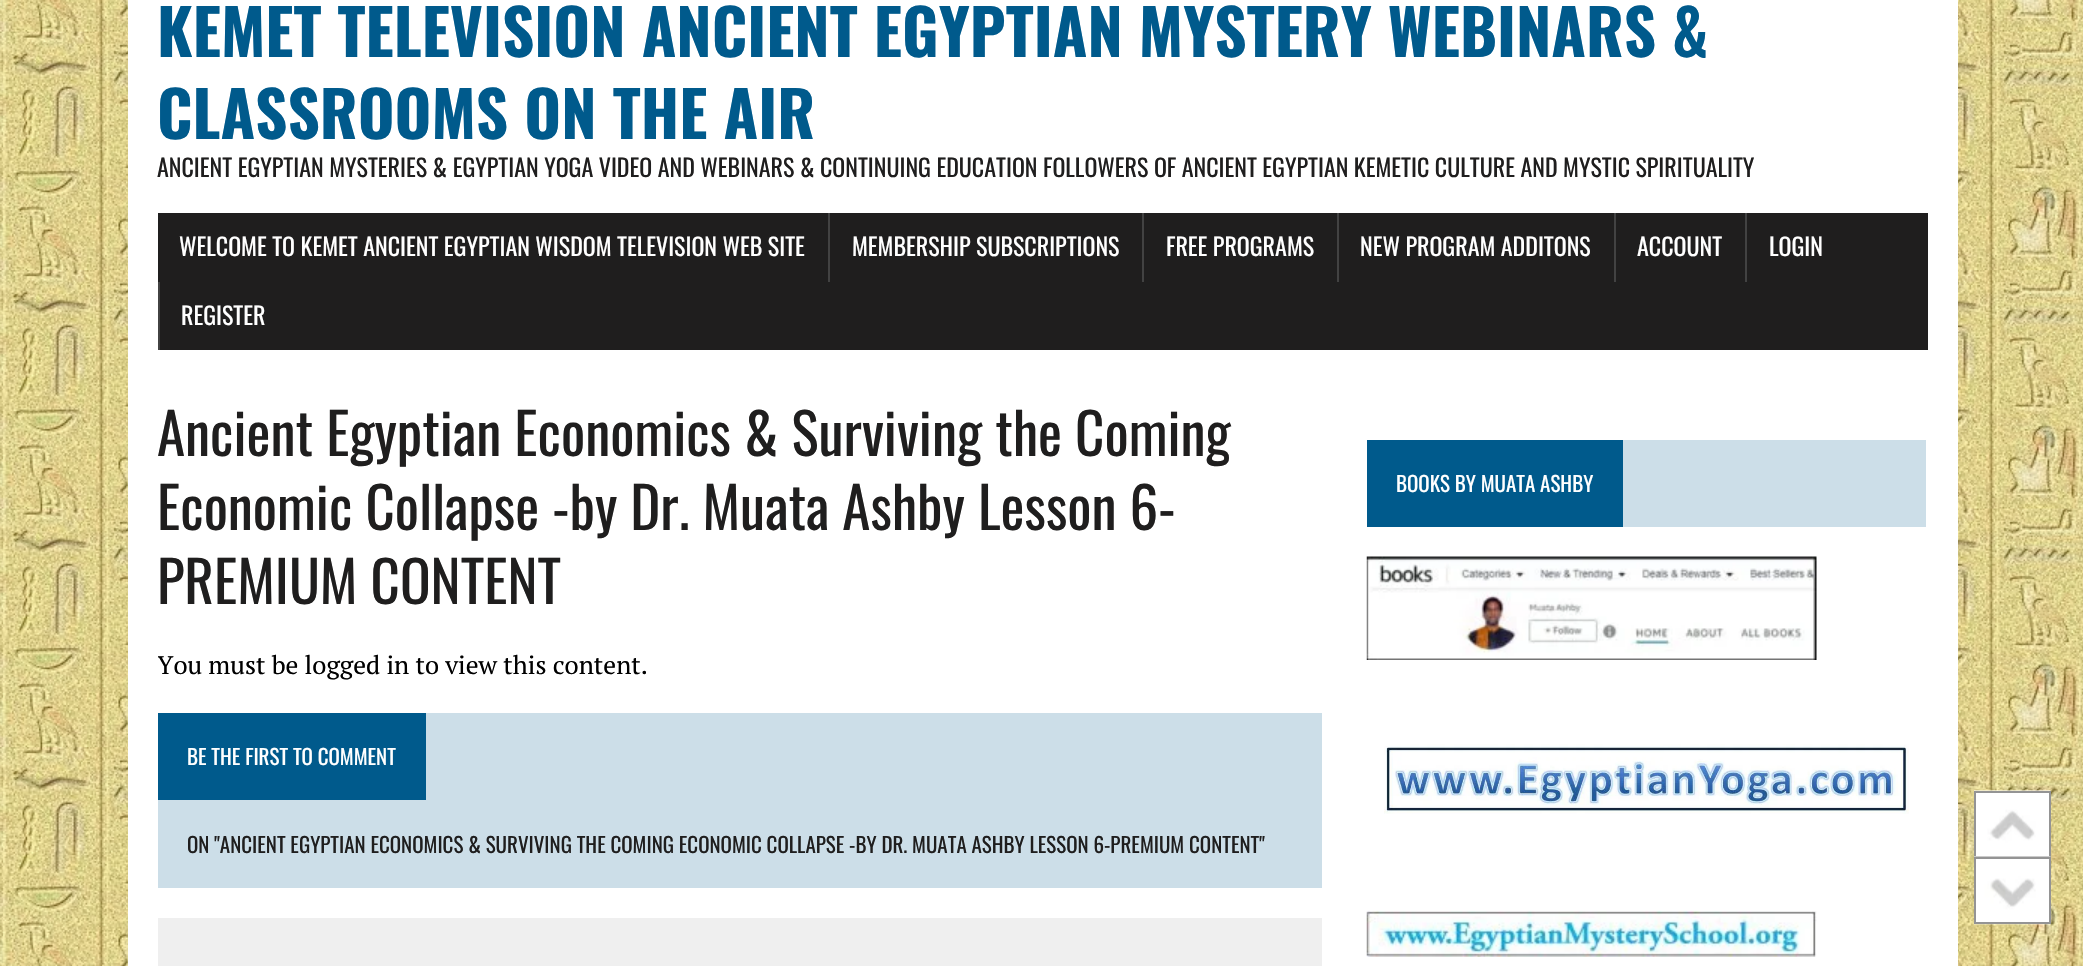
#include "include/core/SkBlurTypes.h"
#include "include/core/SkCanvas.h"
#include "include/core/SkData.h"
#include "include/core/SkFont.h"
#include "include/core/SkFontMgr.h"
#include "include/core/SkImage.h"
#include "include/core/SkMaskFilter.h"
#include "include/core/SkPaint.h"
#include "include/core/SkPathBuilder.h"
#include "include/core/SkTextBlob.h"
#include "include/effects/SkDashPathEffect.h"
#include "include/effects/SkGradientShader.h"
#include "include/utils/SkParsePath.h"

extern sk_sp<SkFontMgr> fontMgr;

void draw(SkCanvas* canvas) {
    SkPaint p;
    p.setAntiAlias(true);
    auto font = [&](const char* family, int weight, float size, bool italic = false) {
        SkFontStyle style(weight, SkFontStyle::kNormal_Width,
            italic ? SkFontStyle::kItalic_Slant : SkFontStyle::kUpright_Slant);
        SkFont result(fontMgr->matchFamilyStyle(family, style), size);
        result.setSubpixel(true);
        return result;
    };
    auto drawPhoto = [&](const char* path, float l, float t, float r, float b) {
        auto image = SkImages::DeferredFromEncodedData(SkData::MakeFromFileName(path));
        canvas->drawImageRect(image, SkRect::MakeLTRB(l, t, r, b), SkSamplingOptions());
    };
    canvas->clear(0xFFFFFFFF);
    drawPhoto("media/1.png", 0, 0, 2083, 966);
    p.setColor(0xFFFFFFFF);
    canvas->drawRect(SkRect::MakeLTRB(128, 0, 1958, 966), p);
    auto font1 = font("Oswald", 700, 63);
    p.setColor(0xFF005A8C);
    canvas->drawString("KEMET TELEVISION ANCIENT EGYPTIAN MYSTERY WEBINARS &", 157, 57, font1, p);
    canvas->drawString("CLASSROOMS ON THE AIR", 157, 139, font1, p);
    auto font2 = font("Oswald", 400, 24);
    p.setColor(0xFF1F1E1E);
    canvas->drawString("ANCIENT EGYPTIAN MYSTERIES & EGYPTIAN YOGA VIDEO AND WEBINARS & CONTINUING EDUCATION FOLLOWERS OF ANCIENT EGYPTIAN KEMETIC CULTURE AND MYSTIC SPIRITUALITY", 157, 177, font2, p);
    canvas->drawRect(SkRect::MakeLTRB(158, 213, 1928, 350), p);
    p.setColor(0xFFFFFFFF);
    canvas->drawString("WELCOME TO KEMET ANCIENT EGYPTIAN WISDOM TELEVISION WEB SITE", 179, 256, font2, p);
    p.setColor(0xFF424242);
    canvas->drawRect(SkRect::MakeLTRB(828, 213, 830, 282), p);
    p.setColor(0xFFFFFFFF);
    canvas->drawString("MEMBERSHIP SUBSCRIPTIONS", 852, 256, font2, p);
    p.setColor(0xFF424242);
    canvas->drawRect(SkRect::MakeLTRB(1142, 213, 1144, 282), p);
    p.setColor(0xFFFFFFFF);
    canvas->drawString("FREE PROGRAMS", 1166, 256, font2, p);
    p.setColor(0xFF424242);
    canvas->drawRect(SkRect::MakeLTRB(1337, 213, 1339, 282), p);
    p.setColor(0xFFFFFFFF);
    canvas->drawString("NEW PROGRAM ADDITONS", 1360, 256, font2, p);
    p.setColor(0xFF424242);
    canvas->drawRect(SkRect::MakeLTRB(1614, 213, 1616, 282), p);
    p.setColor(0xFFFFFFFF);
    canvas->drawString("ACCOUNT", 1637, 256, font2, p);
    p.setColor(0xFF424242);
    canvas->drawRect(SkRect::MakeLTRB(1745, 213, 1747, 282), p);
    p.setColor(0xFFFFFFFF);
    canvas->drawString("LOGIN", 1769, 256, font2, p);
    p.setColor(0xFF424242);
    canvas->drawRect(SkRect::MakeLTRB(158, 282, 160, 350), p);
    p.setColor(0xFFFFFFFF);
    canvas->drawString("REGISTER", 181, 325, font2, p);
    auto font3 = font("Oswald", 400, 57);
    p.setColor(0xFF1F1E1E);
    {
        const struct { const char* s; float x, y; } items[] = {
            {"Ancient Egyptian Economics & Surviving the Coming", 157, 456},
            {"Economic Collapse -by Dr. Muata Ashby Lesson 6-", 157, 530},
            {"PREMIUM CONTENT", 157, 604},
        };
        for (auto [s, x, y] : items) {
            canvas->drawString(s, x, y, font3, p);
        }
    }
    canvas->save();
    canvas->clipRect(SkRect::MakeLTRB(158, 395, 1322, 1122));
    auto font4 = font("PT Serif", 400, 25.5f);
    p.setColor(0xFF000000);
    canvas->drawString("You must be logged in to view this content.", 157, 674, font4, p);
    canvas->restore();
    p.setColor(0xFFCCDEE8);
    canvas->drawRect(SkRect::MakeLTRB(158, 713, 1322, 888), p);
    p.setColor(0xFF005A8C);
    canvas->drawRect(SkRect::MakeLTRB(158, 713, 426, 800), p);
    auto font5 = font("Oswald", 400, 21);
    p.setColor(0xFFFFFFFF);
    canvas->drawString("BE THE FIRST TO COMMENT", 187, 765, font5, p);
    p.setColor(0xFF1F1E1E);
    canvas->drawString("ON \"ANCIENT EGYPTIAN ECONOMICS & SURVIVING THE COMING ECONOMIC COLLAPSE -BY DR. MUATA ASHBY LESSON 6-PREMIUM CONTENT\"", 187, 853, font5, p);
    {
        const struct { float l, t, r, b; SkColor color; } items[] = {
            {158, 918, 1322, 966, 0xFFEFEFEF},
            {1623, 440, 1926, 527, 0xFFCCDEE8},
            {1367, 440, 1623, 527, 0xFF005A8C},
        };
        for (auto [l, t, r, b, color] : items) {
            p.setColor(color);
            canvas->drawRect(SkRect::MakeLTRB(l, t, r, b), p);
        }
    }
    p.setColor(0xFFFFFFFF);
    canvas->drawString("BOOKS BY MUATA ASHBY", 1396, 492, font5, p);
    drawPhoto("media/2.png", 1366, 556, 1817, 660);
    drawPhoto("media/3.png", 1384, 744, 1909, 814);
    drawPhoto("media/4.png", 1366, 910, 1817, 957);
    drawPhoto("media/5.png", 1974, 790, 2051, 856);
    p.setStyle(SkPaint::kStroke_Style);
    p.setStrokeWidth(2);
    p.setColor(0xFF949494);
    canvas->drawRect(SkRect::MakeLTRB(1975, 792, 2050, 857), p);
    drawPhoto("media/6.png", 1974, 856, 2051, 925);
    canvas->drawRect(SkRect::MakeLTRB(1975, 858, 2050, 923), p);
}
